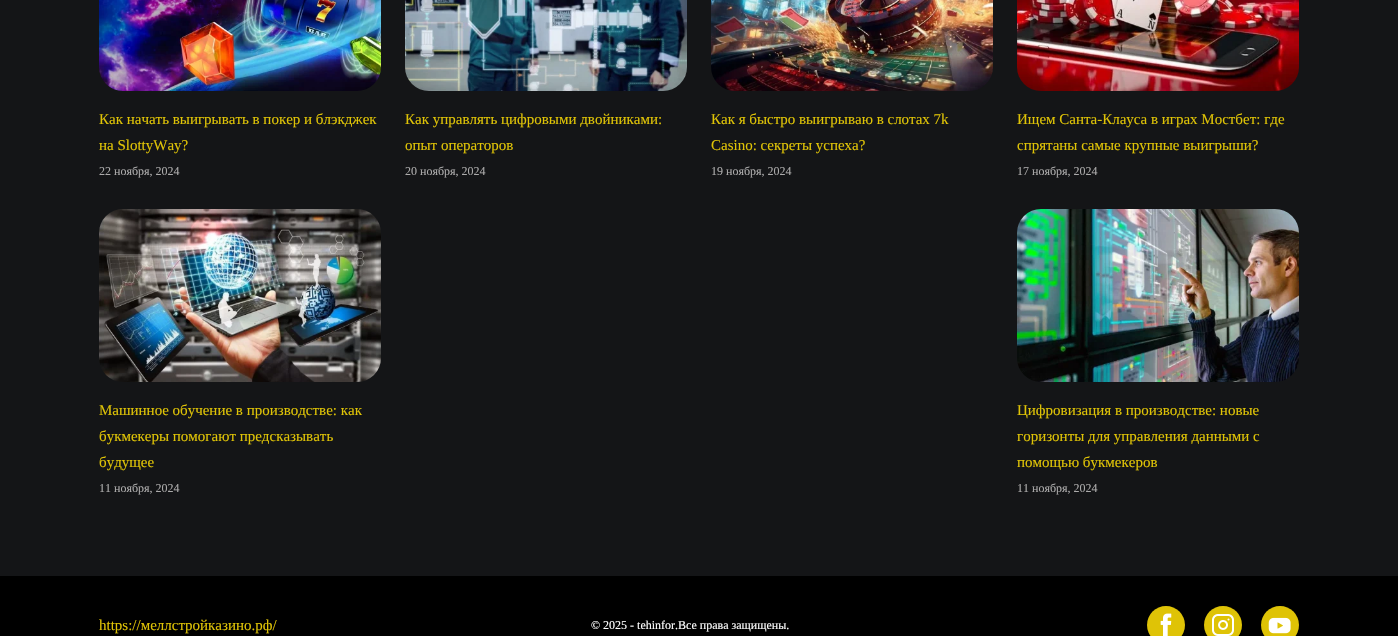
#include "include/core/SkBlurTypes.h"
#include "include/core/SkCanvas.h"
#include "include/core/SkData.h"
#include "include/core/SkFont.h"
#include "include/core/SkFontMgr.h"
#include "include/core/SkImage.h"
#include "include/core/SkMaskFilter.h"
#include "include/core/SkPaint.h"
#include "include/core/SkPathBuilder.h"
#include "include/core/SkTextBlob.h"
#include "include/effects/SkDashPathEffect.h"
#include "include/effects/SkGradientShader.h"
#include "include/utils/SkParsePath.h"

extern sk_sp<SkFontMgr> fontMgr;

void draw(SkCanvas* canvas) {
    SkPaint p;
    p.setAntiAlias(true);
    auto font = [&](const char* family, int weight, float size, bool italic = false) {
        SkFontStyle style(weight, SkFontStyle::kNormal_Width,
            italic ? SkFontStyle::kItalic_Slant : SkFontStyle::kUpright_Slant);
        SkFont result(fontMgr->matchFamilyStyle(family, style), size);
        result.setSubpixel(true);
        return result;
    };
    auto drawPhoto = [&](const char* path, float l, float t, float r, float b) {
        auto image = SkImages::DeferredFromEncodedData(SkData::MakeFromFileName(path));
        canvas->drawImageRect(image, SkRect::MakeLTRB(l, t, r, b), SkSamplingOptions());
    };
    canvas->clear(0xFF141517);
    drawPhoto("media/1.png", 99, 0, 381, 91);
    auto font1 = font("Liberation Serif", 400, 15);
    p.setColor(0xFFDFC306);
    canvas->drawString("Как начать выигрывать в покер и блэкджек", 99, 124, font1, p);
    canvas->drawString("на SlottyWay?", 99, 150, font1, p);
    auto font2 = font("Liberation Serif", 400, 12);
    p.setColor(0xFFACABAB);
    canvas->drawString("22 ноября, 2024", 99, 175, font2, p);
    drawPhoto("media/2.png", 405, 0, 687, 91);
    p.setColor(0xFFDFC306);
    canvas->drawString("Как управлять цифровыми двойниками:", 405, 124, font1, p);
    canvas->drawString("опыт операторов", 405, 150, font1, p);
    p.setColor(0xFFACABAB);
    canvas->drawString("20 ноября, 2024", 405, 175, font2, p);
    drawPhoto("media/3.png", 711, 0, 993, 91);
    p.setColor(0xFFDFC306);
    canvas->drawString("Как я быстро выигрываю в слотах 7k", 711, 124, font1, p);
    canvas->drawString("Casino: секреты успеха?", 711, 150, font1, p);
    p.setColor(0xFFACABAB);
    canvas->drawString("19 ноября, 2024", 711, 175, font2, p);
    drawPhoto("media/4.png", 1017, 0, 1299, 91);
    p.setColor(0xFFDFC306);
    canvas->drawString("Ищем Санта-Клауса в играх Мостбет: где", 1017, 124, font1, p);
    canvas->drawString("спрятаны самые крупные выигрыши?", 1017, 150, font1, p);
    p.setColor(0xFFACABAB);
    canvas->drawString("17 ноября, 2024", 1017, 175, font2, p);
    drawPhoto("media/5.png", 99, 209, 381, 382);
    p.setColor(0xFFDFC306);
    {
        const struct { const char* s; float x, y; } items[] = {
            {"Машинное обучение в производстве: как", 99, 415},
            {"букмекеры помогают предсказывать", 99, 441},
            {"будущее", 99, 467},
        };
        for (auto [s, x, y] : items) {
            canvas->drawString(s, x, y, font1, p);
        }
    }
    p.setColor(0xFFACABAB);
    canvas->drawString("11 ноября, 2024", 99, 492, font2, p);
    drawPhoto("media/6.png", 1017, 209, 1299, 382);
    p.setColor(0xFFDFC306);
    {
        const struct { const char* s; float x, y; } items[] = {
            {"Цифровизация в производстве: новые", 1017, 415},
            {"горизонты для управления данными с", 1017, 441},
            {"помощью букмекеров", 1017, 467},
        };
        for (auto [s, x, y] : items) {
            canvas->drawString(s, x, y, font1, p);
        }
    }
    p.setColor(0xFFACABAB);
    canvas->drawString("11 ноября, 2024", 1017, 492, font2, p);
    p.setColor(0xFF000000);
    canvas->drawRect(SkRect::MakeLTRB(0, 576, 1398, 636), p);
    p.setColor(0xFFDFC306);
    canvas->drawString("https://меллстройказино.рф/", 99, 630, font1, p);
    p.setColor(0xFFFFFFFF);
    canvas->drawString("© 2025 - tehinfor.Все права защищены.", 591, 629, font2, p);
    p.setColor(0xFFDFC306);
    canvas->drawCircle(1166, 625, 19, p);
    drawPhoto("media/7.png", 1160, 613, 1172, 636);
    canvas->drawCircle(1223, 625, 19, p);
    drawPhoto("media/8.png", 1212, 614, 1234, 636);
    canvas->drawCircle(1280, 625, 19, p);
    drawPhoto("media/9.png", 1268, 617, 1291, 634);
}
